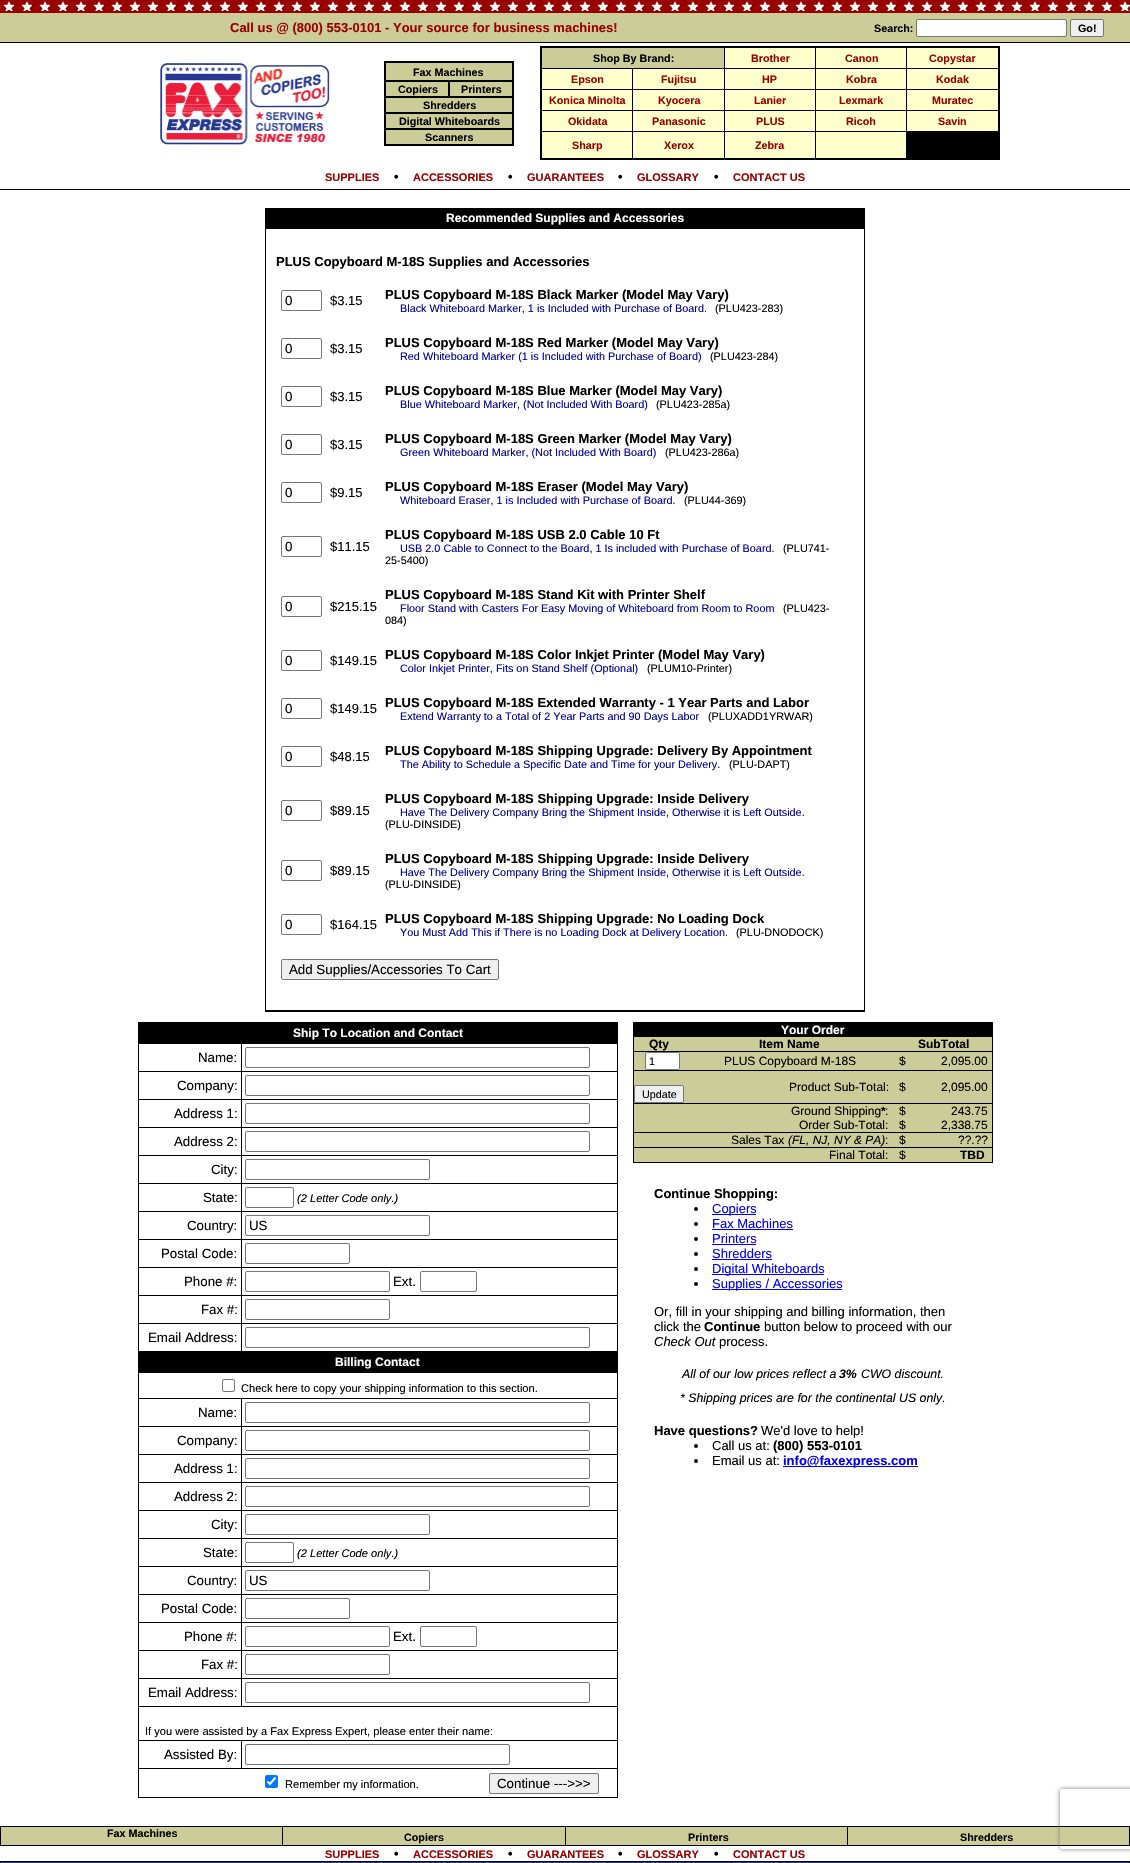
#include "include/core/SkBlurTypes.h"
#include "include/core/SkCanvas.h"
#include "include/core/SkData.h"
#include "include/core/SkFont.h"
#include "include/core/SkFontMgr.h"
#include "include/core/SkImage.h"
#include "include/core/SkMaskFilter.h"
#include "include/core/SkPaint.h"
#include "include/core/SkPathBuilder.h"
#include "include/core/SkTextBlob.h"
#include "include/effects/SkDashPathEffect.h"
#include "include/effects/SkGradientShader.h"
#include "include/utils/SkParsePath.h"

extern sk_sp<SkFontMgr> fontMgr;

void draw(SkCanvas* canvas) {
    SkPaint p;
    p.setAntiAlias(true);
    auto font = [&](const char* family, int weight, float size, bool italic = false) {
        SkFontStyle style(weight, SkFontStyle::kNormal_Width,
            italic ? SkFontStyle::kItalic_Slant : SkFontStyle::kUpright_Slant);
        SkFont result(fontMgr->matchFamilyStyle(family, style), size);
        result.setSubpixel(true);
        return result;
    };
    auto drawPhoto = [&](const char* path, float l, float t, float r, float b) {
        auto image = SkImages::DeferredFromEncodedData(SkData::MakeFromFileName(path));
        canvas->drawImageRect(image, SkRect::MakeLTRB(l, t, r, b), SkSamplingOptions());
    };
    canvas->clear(0xFFFFFFFF);
    p.setColor(0xFF000000);
    canvas->drawRect(SkRect::MakeLTRB(0, 42, 1130, 43), p);
    drawPhoto("media/1.png", 0, 0, 1130, 13);
    p.setColor(0xFFCCCC99);
    canvas->drawRect(SkRect::MakeLTRB(0, 13, 1130, 42), p);
    auto font1 = font("Liberation Sans", 700, 13);
    p.setColor(0xFF990000);
    canvas->drawString("Call us @ (800) 553-0101 - Your source for business machines!", 230, 32, font1, p);
    auto font2 = font("Liberation Sans", 700, 10.75f);
    p.setColor(0xFF000000);
    canvas->drawString("Search:", 874, 32, font2, p);
    p.setColor(0xFFFFFFFF);
    canvas->drawRoundRect(SkRect::MakeLTRB(916.5f, 19.5f, 1066.5f, 36.5f), 1.5f, 1.5f, p);
    p.setStyle(SkPaint::kStroke_Style);
    p.setStrokeWidth(1);
    p.setColor(0xFF767676);
    canvas->drawRoundRect(SkRect::MakeLTRB(916.5f, 19.5f, 1066.5f, 36.5f), 1.5f, 1.5f, p);
    p.setStyle(SkPaint::kFill_Style);
    p.setColor(0xFFEFEFEF);
    canvas->drawRoundRect(SkRect::MakeLTRB(1070.5f, 19.5f, 1103.5f, 36.5f), 1.5f, 1.5f, p);
    p.setStyle(SkPaint::kStroke_Style);
    p.setColor(0xFF767676);
    canvas->drawRoundRect(SkRect::MakeLTRB(1070.5f, 19.5f, 1103.5f, 36.5f), 1.5f, 1.5f, p);
    p.setStyle(SkPaint::kFill_Style);
    p.setColor(0xFF000000);
    canvas->drawString("Go!", 1078, 32, font2, p);
    drawPhoto("media/2.png", 160, 63, 330, 145);
    canvas->drawRect(SkRect::MakeLTRB(384, 61, 514, 146), p);
    p.setColor(0xFFCCCC99);
    canvas->drawRect(SkRect::MakeLTRB(386, 63, 512, 80), p);
    p.setColor(0xFF000000);
    canvas->drawString("Fax Machines", 413, 76, font2, p);
    p.setColor(0xFFCCCC99);
    canvas->drawRect(SkRect::MakeLTRB(386, 82, 448, 96), p);
    p.setColor(0xFF000000);
    canvas->drawString("Copiers", 398, 93, font2, p);
    p.setColor(0xFFCCCC99);
    canvas->drawRect(SkRect::MakeLTRB(450, 82, 512, 96), p);
    p.setColor(0xFF000000);
    canvas->drawString("Printers", 461, 93, font2, p);
    p.setColor(0xFFCCCC99);
    canvas->drawRect(SkRect::MakeLTRB(386, 98, 512, 112), p);
    p.setColor(0xFF000000);
    canvas->drawString("Shredders", 423, 109, font2, p);
    p.setColor(0xFFCCCC99);
    canvas->drawRect(SkRect::MakeLTRB(386, 114, 512, 128), p);
    p.setColor(0xFF000000);
    canvas->drawString("Digital Whiteboards", 399, 125, font2, p);
    p.setColor(0xFFCCCC99);
    canvas->drawRect(SkRect::MakeLTRB(386, 130, 512, 144), p);
    p.setColor(0xFF000000);
    canvas->drawString("Scanners", 425, 141, font2, p);
    p.setStyle(SkPaint::kStroke_Style);
    canvas->drawRect(SkRect::MakeLTRB(540.5f, 46.5f, 999.5f, 159.5f), p);
    p.setStyle(SkPaint::kFill_Style);
    canvas->drawRect(SkRect::MakeLTRB(541, 47, 999, 159), p);
    p.setColor(0xFFCCCC99);
    canvas->drawRect(SkRect::MakeLTRB(542, 48, 724, 68), p);
    p.setColor(0xFF000000);
    canvas->drawString("Shop By Brand:", 593, 62, font2, p);
    p.setColor(0xFFFFFFCC);
    canvas->drawRect(SkRect::MakeLTRB(725, 48, 815, 68), p);
    p.setColor(0xFF990000);
    canvas->drawString("Brother", 751, 62, font2, p);
    p.setColor(0xFFFFFFCC);
    canvas->drawRect(SkRect::MakeLTRB(816, 48, 906, 68), p);
    p.setColor(0xFF990000);
    canvas->drawString("Canon", 845, 62, font2, p);
    p.setColor(0xFFFFFFCC);
    canvas->drawRect(SkRect::MakeLTRB(907, 48, 998, 68), p);
    p.setColor(0xFF990000);
    canvas->drawString("Copystar", 929, 62, font2, p);
    p.setColor(0xFFFFFFCC);
    canvas->drawRect(SkRect::MakeLTRB(542, 69, 632, 89), p);
    p.setColor(0xFF990000);
    canvas->drawString("Epson", 571, 83, font2, p);
    p.setColor(0xFFFFFFCC);
    canvas->drawRect(SkRect::MakeLTRB(633, 69, 724, 89), p);
    p.setColor(0xFF990000);
    canvas->drawString("Fujitsu", 661, 83, font2, p);
    p.setColor(0xFFFFFFCC);
    canvas->drawRect(SkRect::MakeLTRB(725, 69, 815, 89), p);
    p.setColor(0xFF990000);
    canvas->drawString("HP", 762, 83, font2, p);
    p.setColor(0xFFFFFFCC);
    canvas->drawRect(SkRect::MakeLTRB(816, 69, 906, 89), p);
    p.setColor(0xFF990000);
    canvas->drawString("Kobra", 846, 83, font2, p);
    p.setColor(0xFFFFFFCC);
    canvas->drawRect(SkRect::MakeLTRB(907, 69, 998, 89), p);
    p.setColor(0xFF990000);
    canvas->drawString("Kodak", 936, 83, font2, p);
    p.setColor(0xFFFFFFCC);
    canvas->drawRect(SkRect::MakeLTRB(542, 90, 632, 110), p);
    p.setColor(0xFF990000);
    canvas->drawString("Konica Minolta", 549, 104, font2, p);
    p.setColor(0xFFFFFFCC);
    canvas->drawRect(SkRect::MakeLTRB(633, 90, 724, 110), p);
    p.setColor(0xFF990000);
    canvas->drawString("Kyocera", 658, 104, font2, p);
    p.setColor(0xFFFFFFCC);
    canvas->drawRect(SkRect::MakeLTRB(725, 90, 815, 110), p);
    p.setColor(0xFF990000);
    canvas->drawString("Lanier", 754, 104, font2, p);
    p.setColor(0xFFFFFFCC);
    canvas->drawRect(SkRect::MakeLTRB(816, 90, 906, 110), p);
    p.setColor(0xFF990000);
    canvas->drawString("Lexmark", 839, 104, font2, p);
    p.setColor(0xFFFFFFCC);
    canvas->drawRect(SkRect::MakeLTRB(907, 90, 998, 110), p);
    p.setColor(0xFF990000);
    canvas->drawString("Muratec", 932, 104, font2, p);
    p.setColor(0xFFFFFFCC);
    canvas->drawRect(SkRect::MakeLTRB(542, 111, 632, 131), p);
    p.setColor(0xFF990000);
    canvas->drawString("Okidata", 568, 125, font2, p);
    p.setColor(0xFFFFFFCC);
    canvas->drawRect(SkRect::MakeLTRB(633, 111, 724, 131), p);
    p.setColor(0xFF990000);
    canvas->drawString("Panasonic", 652, 125, font2, p);
    p.setColor(0xFFFFFFCC);
    canvas->drawRect(SkRect::MakeLTRB(725, 111, 815, 131), p);
    p.setColor(0xFF990000);
    canvas->drawString("PLUS", 756, 125, font2, p);
    p.setColor(0xFFFFFFCC);
    canvas->drawRect(SkRect::MakeLTRB(816, 111, 906, 131), p);
    p.setColor(0xFF990000);
    canvas->drawString("Ricoh", 846, 125, font2, p);
    p.setColor(0xFFFFFFCC);
    canvas->drawRect(SkRect::MakeLTRB(907, 111, 998, 131), p);
    p.setColor(0xFF990000);
    canvas->drawString("Savin", 938, 125, font2, p);
    p.setColor(0xFFFFFFCC);
    canvas->drawRect(SkRect::MakeLTRB(542, 132, 632, 158), p);
    p.setColor(0xFF990000);
    canvas->drawString("Sharp", 572, 149, font2, p);
    p.setColor(0xFFFFFFCC);
    canvas->drawRect(SkRect::MakeLTRB(633, 132, 724, 158), p);
    p.setColor(0xFF990000);
    canvas->drawString("Xerox", 664, 149, font2, p);
    p.setColor(0xFFFFFFCC);
    canvas->drawRect(SkRect::MakeLTRB(725, 132, 815, 158), p);
    p.setColor(0xFF990000);
    canvas->drawString("Zebra", 755, 149, font2, p);
    p.setColor(0xFFFFFFCC);
    canvas->drawRect(SkRect::MakeLTRB(816, 132, 906, 158), p);
    p.setColor(0xFF000000);
    canvas->drawRect(SkRect::MakeLTRB(0, 189, 1130, 190), p);
    auto font3 = font("Liberation Sans", 700, 11);
    p.setColor(0xFF990000);
    canvas->drawString("SUPPLIES", 325, 181, font3, p);
    p.setColor(0xFF000000);
    canvas->drawString("•", 394, 181, font1, p);
    p.setColor(0xFF990000);
    canvas->drawString("ACCESSORIES", 413, 181, font3, p);
    p.setColor(0xFF000000);
    canvas->drawString("•", 508, 181, font1, p);
    p.setColor(0xFF990000);
    canvas->drawString("GUARANTEES", 527, 181, font3, p);
    p.setColor(0xFF000000);
    canvas->drawString("•", 618, 181, font1, p);
    p.setColor(0xFF990000);
    canvas->drawString("GLOSSARY", 637, 181, font3, p);
    p.setColor(0xFF000000);
    canvas->drawString("•", 714, 181, font1, p);
    p.setColor(0xFF990000);
    canvas->drawString("CONTACT US", 733, 181, font3, p);
    p.setColor(0xFF000000);
    canvas->drawRect(SkRect::MakeLTRB(265, 208, 865, 1012), p);
    auto font4 = font("Liberation Sans", 700, 12);
    p.setColor(0xFFFFFFFF);
    canvas->drawString("Recommended Supplies and Accessories", 446, 222, font4, p);
    canvas->drawRect(SkRect::MakeLTRB(266, 229, 864, 1010), p);
    p.setColor(0xFF000000);
    canvas->drawString("PLUS Copyboard M-18S Supplies and Accessories", 276, 266, font1, p);
    p.setStyle(SkPaint::kStroke_Style);
    p.setColor(0xFF767676);
    canvas->drawRoundRect(SkRect::MakeLTRB(281.5f, 290.5f, 321.5f, 310.5f), 1.5f, 1.5f, p);
    auto font5 = font("Liberation Sans", 400, 13.3f);
    p.setStyle(SkPaint::kFill_Style);
    p.setColor(0xFF000000);
    canvas->drawString("0", 285, 305, font5, p);
    auto font6 = font("Liberation Sans", 400, 13);
    canvas->drawString("$3.15", 330, 305, font6, p);
    canvas->drawString("PLUS Copyboard M-18S Black Marker (Model May Vary)", 385, 299, font1, p);
    auto font7 = font("Liberation Sans", 400, 10.85f);
    p.setColor(0xFF000099);
    canvas->drawString("Black Whiteboard Marker, 1 is Included with Purchase of Board.", 400, 312, font7, p);
    p.setColor(0xFF000000);
    canvas->drawString("(PLU423-283)", 715, 312, font7, p);
    p.setStyle(SkPaint::kStroke_Style);
    p.setColor(0xFF767676);
    canvas->drawRoundRect(SkRect::MakeLTRB(281.5f, 338.5f, 321.5f, 358.5f), 1.5f, 1.5f, p);
    p.setStyle(SkPaint::kFill_Style);
    p.setColor(0xFF000000);
    canvas->drawString("0", 285, 353, font5, p);
    canvas->drawString("$3.15", 330, 353, font6, p);
    canvas->drawString("PLUS Copyboard M-18S Red Marker (Model May Vary)", 385, 347, font1, p);
    p.setColor(0xFF000099);
    canvas->drawString("Red Whiteboard Marker (1 is Included with Purchase of Board)", 400, 360, font7, p);
    p.setColor(0xFF000000);
    canvas->drawString("(PLU423-284)", 710, 360, font7, p);
    p.setStyle(SkPaint::kStroke_Style);
    p.setColor(0xFF767676);
    canvas->drawRoundRect(SkRect::MakeLTRB(281.5f, 386.5f, 321.5f, 406.5f), 1.5f, 1.5f, p);
    p.setStyle(SkPaint::kFill_Style);
    p.setColor(0xFF000000);
    canvas->drawString("0", 285, 401, font5, p);
    canvas->drawString("$3.15", 330, 401, font6, p);
    canvas->drawString("PLUS Copyboard M-18S Blue Marker (Model May Vary)", 385, 395, font1, p);
    p.setColor(0xFF000099);
    canvas->drawString("Blue Whiteboard Marker, (Not Included With Board)", 400, 408, font7, p);
    p.setColor(0xFF000000);
    canvas->drawString("(PLU423-285a)", 656, 408, font7, p);
    p.setStyle(SkPaint::kStroke_Style);
    p.setColor(0xFF767676);
    canvas->drawRoundRect(SkRect::MakeLTRB(281.5f, 434.5f, 321.5f, 454.5f), 1.5f, 1.5f, p);
    p.setStyle(SkPaint::kFill_Style);
    p.setColor(0xFF000000);
    canvas->drawString("0", 285, 449, font5, p);
    canvas->drawString("$3.15", 330, 449, font6, p);
    canvas->drawString("PLUS Copyboard M-18S Green Marker (Model May Vary)", 385, 443, font1, p);
    p.setColor(0xFF000099);
    canvas->drawString("Green Whiteboard Marker, (Not Included With Board)", 400, 456, font7, p);
    p.setColor(0xFF000000);
    canvas->drawString("(PLU423-286a)", 665, 456, font7, p);
    p.setStyle(SkPaint::kStroke_Style);
    p.setColor(0xFF767676);
    canvas->drawRoundRect(SkRect::MakeLTRB(281.5f, 482.5f, 321.5f, 502.5f), 1.5f, 1.5f, p);
    p.setStyle(SkPaint::kFill_Style);
    p.setColor(0xFF000000);
    canvas->drawString("0", 285, 497, font5, p);
    canvas->drawString("$9.15", 330, 497, font6, p);
    canvas->drawString("PLUS Copyboard M-18S Eraser (Model May Vary)", 385, 491, font1, p);
    p.setColor(0xFF000099);
    canvas->drawString("Whiteboard Eraser, 1 is Included with Purchase of Board.", 400, 504, font7, p);
    p.setColor(0xFF000000);
    canvas->drawString("(PLU44-369)", 684, 504, font7, p);
    p.setStyle(SkPaint::kStroke_Style);
    p.setColor(0xFF767676);
    canvas->drawRoundRect(SkRect::MakeLTRB(281.5f, 536.5f, 321.5f, 556.5f), 1.5f, 1.5f, p);
    p.setStyle(SkPaint::kFill_Style);
    p.setColor(0xFF000000);
    canvas->drawString("0", 285, 551, font5, p);
    canvas->drawString("$11.15", 330, 551, font6, p);
    canvas->drawString("PLUS Copyboard M-18S USB 2.0 Cable 10 Ft", 385, 539, font1, p);
    p.setColor(0xFF000099);
    canvas->drawString("USB 2.0 Cable to Connect to the Board, 1 Is included with Purchase of Board.", 400, 552, font7, p);
    p.setColor(0xFF000000);
    canvas->drawString("(PLU741-", 783, 552, font7, p);
    canvas->drawString("25-5400)", 385, 564, font7, p);
    p.setStyle(SkPaint::kStroke_Style);
    p.setColor(0xFF767676);
    canvas->drawRoundRect(SkRect::MakeLTRB(281.5f, 596.5f, 321.5f, 616.5f), 1.5f, 1.5f, p);
    p.setStyle(SkPaint::kFill_Style);
    p.setColor(0xFF000000);
    canvas->drawString("0", 285, 611, font5, p);
    canvas->drawString("$215.15", 330, 611, font6, p);
    canvas->drawString("PLUS Copyboard M-18S Stand Kit with Printer Shelf", 385, 599, font1, p);
    p.setColor(0xFF000099);
    canvas->drawString("Floor Stand with Casters For Easy Moving of Whiteboard from Room to Room", 400, 612, font7, p);
    p.setColor(0xFF000000);
    canvas->drawString("(PLU423-", 783, 612, font7, p);
    canvas->drawString("084)", 385, 624, font7, p);
    p.setStyle(SkPaint::kStroke_Style);
    p.setColor(0xFF767676);
    canvas->drawRoundRect(SkRect::MakeLTRB(281.5f, 650.5f, 321.5f, 670.5f), 1.5f, 1.5f, p);
    p.setStyle(SkPaint::kFill_Style);
    p.setColor(0xFF000000);
    canvas->drawString("0", 285, 665, font5, p);
    canvas->drawString("$149.15", 330, 665, font6, p);
    canvas->drawString("PLUS Copyboard M-18S Color Inkjet Printer (Model May Vary)", 385, 659, font1, p);
    p.setColor(0xFF000099);
    canvas->drawString("Color Inkjet Printer, Fits on Stand Shelf (Optional)", 400, 672, font7, p);
    p.setColor(0xFF000000);
    canvas->drawString("(PLUM10-Printer)", 647, 672, font7, p);
    p.setStyle(SkPaint::kStroke_Style);
    p.setColor(0xFF767676);
    canvas->drawRoundRect(SkRect::MakeLTRB(281.5f, 698.5f, 321.5f, 718.5f), 1.5f, 1.5f, p);
    p.setStyle(SkPaint::kFill_Style);
    p.setColor(0xFF000000);
    canvas->drawString("0", 285, 713, font5, p);
    canvas->drawString("$149.15", 330, 713, font6, p);
    canvas->drawString("PLUS Copyboard M-18S Extended Warranty - 1 Year Parts and Labor", 385, 707, font1, p);
    p.setColor(0xFF000099);
    canvas->drawString("Extend Warranty to a Total of 2 Year Parts and 90 Days Labor", 400, 720, font7, p);
    p.setColor(0xFF000000);
    canvas->drawString("(PLUXADD1YRWAR)", 708, 720, font7, p);
    p.setStyle(SkPaint::kStroke_Style);
    p.setColor(0xFF767676);
    canvas->drawRoundRect(SkRect::MakeLTRB(281.5f, 746.5f, 321.5f, 766.5f), 1.5f, 1.5f, p);
    p.setStyle(SkPaint::kFill_Style);
    p.setColor(0xFF000000);
    canvas->drawString("0", 285, 761, font5, p);
    canvas->drawString("$48.15", 330, 761, font6, p);
    canvas->drawString("PLUS Copyboard M-18S Shipping Upgrade: Delivery By Appointment", 385, 755, font1, p);
    p.setColor(0xFF000099);
    canvas->drawString("The Ability to Schedule a Specific Date and Time for your Delivery.", 400, 768, font7, p);
    p.setColor(0xFF000000);
    canvas->drawString("(PLU-DAPT)", 729, 768, font7, p);
    p.setStyle(SkPaint::kStroke_Style);
    p.setColor(0xFF767676);
    canvas->drawRoundRect(SkRect::MakeLTRB(281.5f, 800.5f, 321.5f, 820.5f), 1.5f, 1.5f, p);
    p.setStyle(SkPaint::kFill_Style);
    p.setColor(0xFF000000);
    canvas->drawString("0", 285, 815, font5, p);
    canvas->drawString("$89.15", 330, 815, font6, p);
    canvas->drawString("PLUS Copyboard M-18S Shipping Upgrade: Inside Delivery", 385, 803, font1, p);
    p.setColor(0xFF000099);
    canvas->drawString("Have The Delivery Company Bring the Shipment Inside, Otherwise it is Left Outside.", 400, 816, font7, p);
    p.setColor(0xFF000000);
    canvas->drawString("(PLU-DINSIDE)", 385, 828, font7, p);
    p.setStyle(SkPaint::kStroke_Style);
    p.setColor(0xFF767676);
    canvas->drawRoundRect(SkRect::MakeLTRB(281.5f, 860.5f, 321.5f, 880.5f), 1.5f, 1.5f, p);
    p.setStyle(SkPaint::kFill_Style);
    p.setColor(0xFF000000);
    canvas->drawString("0", 285, 875, font5, p);
    canvas->drawString("$89.15", 330, 875, font6, p);
    canvas->drawString("PLUS Copyboard M-18S Shipping Upgrade: Inside Delivery", 385, 863, font1, p);
    p.setColor(0xFF000099);
    canvas->drawString("Have The Delivery Company Bring the Shipment Inside, Otherwise it is Left Outside.", 400, 876, font7, p);
    p.setColor(0xFF000000);
    canvas->drawString("(PLU-DINSIDE)", 385, 888, font7, p);
    p.setStyle(SkPaint::kStroke_Style);
    p.setColor(0xFF767676);
    canvas->drawRoundRect(SkRect::MakeLTRB(281.5f, 914.5f, 321.5f, 934.5f), 1.5f, 1.5f, p);
    p.setStyle(SkPaint::kFill_Style);
    p.setColor(0xFF000000);
    canvas->drawString("0", 285, 929, font5, p);
    canvas->drawString("$164.15", 330, 929, font6, p);
    canvas->drawString("PLUS Copyboard M-18S Shipping Upgrade: No Loading Dock", 385, 923, font1, p);
    p.setColor(0xFF000099);
    canvas->drawString("You Must Add This if There is no Loading Dock at Delivery Location.", 400, 936, font7, p);
    p.setColor(0xFF000000);
    canvas->drawString("(PLU-DNODOCK)", 736, 936, font7, p);
    p.setColor(0xFFEFEFEF);
    canvas->drawRoundRect(SkRect::MakeLTRB(281.5f, 959.5f, 498.5f, 979.5f), 1.5f, 1.5f, p);
    p.setStyle(SkPaint::kStroke_Style);
    p.setColor(0xFF767676);
    canvas->drawRoundRect(SkRect::MakeLTRB(281.5f, 959.5f, 498.5f, 979.5f), 1.5f, 1.5f, p);
    p.setStyle(SkPaint::kFill_Style);
    p.setColor(0xFF000000);
    canvas->drawString("Add Supplies/Accessories To Cart", 289, 974, font5, p);
    canvas->drawRect(SkRect::MakeLTRB(138, 1022, 618, 1798), p);
    p.setColor(0xFFFFFFFF);
    canvas->drawString("Ship To Location and Contact", 293, 1037, font4, p);
    canvas->drawRect(SkRect::MakeLTRB(139, 1044, 241, 1071), p);
    p.setColor(0xFF000000);
    canvas->drawString("Name:", 198, 1062, font5, p);
    p.setColor(0xFFFFFFFF);
    canvas->drawRect(SkRect::MakeLTRB(242, 1044, 617, 1071), p);
    p.setStyle(SkPaint::kStroke_Style);
    p.setColor(0xFF767676);
    canvas->drawRoundRect(SkRect::MakeLTRB(245.5f, 1047.5f, 589.5f, 1067.5f), 1.5f, 1.5f, p);
    p.setStyle(SkPaint::kFill_Style);
    p.setColor(0xFFFFFFFF);
    canvas->drawRect(SkRect::MakeLTRB(139, 1072, 241, 1099), p);
    p.setColor(0xFF000000);
    canvas->drawString("Company:", 177, 1090, font5, p);
    p.setColor(0xFFFFFFFF);
    canvas->drawRect(SkRect::MakeLTRB(242, 1072, 617, 1099), p);
    p.setStyle(SkPaint::kStroke_Style);
    p.setColor(0xFF767676);
    canvas->drawRoundRect(SkRect::MakeLTRB(245.5f, 1075.5f, 589.5f, 1095.5f), 1.5f, 1.5f, p);
    p.setStyle(SkPaint::kFill_Style);
    p.setColor(0xFFFFFFFF);
    canvas->drawRect(SkRect::MakeLTRB(139, 1100, 241, 1127), p);
    p.setColor(0xFF000000);
    canvas->drawString("Address 1:", 174, 1118, font5, p);
    p.setColor(0xFFFFFFFF);
    canvas->drawRect(SkRect::MakeLTRB(242, 1100, 617, 1127), p);
    p.setStyle(SkPaint::kStroke_Style);
    p.setColor(0xFF767676);
    canvas->drawRoundRect(SkRect::MakeLTRB(245.5f, 1103.5f, 589.5f, 1123.5f), 1.5f, 1.5f, p);
    p.setStyle(SkPaint::kFill_Style);
    p.setColor(0xFFFFFFFF);
    canvas->drawRect(SkRect::MakeLTRB(139, 1128, 241, 1155), p);
    p.setColor(0xFF000000);
    canvas->drawString("Address 2:", 174, 1146, font5, p);
    p.setColor(0xFFFFFFFF);
    canvas->drawRect(SkRect::MakeLTRB(242, 1128, 617, 1155), p);
    p.setStyle(SkPaint::kStroke_Style);
    p.setColor(0xFF767676);
    canvas->drawRoundRect(SkRect::MakeLTRB(245.5f, 1131.5f, 589.5f, 1151.5f), 1.5f, 1.5f, p);
    p.setStyle(SkPaint::kFill_Style);
    p.setColor(0xFFFFFFFF);
    canvas->drawRect(SkRect::MakeLTRB(139, 1156, 241, 1183), p);
    p.setColor(0xFF000000);
    canvas->drawString("City:", 211, 1174, font5, p);
    p.setColor(0xFFFFFFFF);
    canvas->drawRect(SkRect::MakeLTRB(242, 1156, 617, 1183), p);
    p.setStyle(SkPaint::kStroke_Style);
    p.setColor(0xFF767676);
    canvas->drawRoundRect(SkRect::MakeLTRB(245.5f, 1159.5f, 429.5f, 1179.5f), 1.5f, 1.5f, p);
    p.setStyle(SkPaint::kFill_Style);
    p.setColor(0xFFFFFFFF);
    canvas->drawRect(SkRect::MakeLTRB(139, 1184, 241, 1211), p);
    p.setColor(0xFF000000);
    canvas->drawString("State:", 203, 1202, font5, p);
    p.setColor(0xFFFFFFFF);
    canvas->drawRect(SkRect::MakeLTRB(242, 1184, 617, 1211), p);
    p.setStyle(SkPaint::kStroke_Style);
    p.setColor(0xFF767676);
    canvas->drawRoundRect(SkRect::MakeLTRB(245.5f, 1187.5f, 293.5f, 1207.5f), 1.5f, 1.5f, p);
    auto font8 = font("Liberation Sans", 400, 11.1f, true);
    p.setStyle(SkPaint::kFill_Style);
    p.setColor(0xFF000000);
    canvas->drawString("(2 Letter Code only.)", 297, 1202, font8, p);
    p.setColor(0xFFFFFFFF);
    canvas->drawRect(SkRect::MakeLTRB(139, 1212, 241, 1239), p);
    p.setColor(0xFF000000);
    canvas->drawString("Country:", 187, 1230, font5, p);
    p.setColor(0xFFFFFFFF);
    canvas->drawRect(SkRect::MakeLTRB(242, 1212, 617, 1239), p);
    p.setStyle(SkPaint::kStroke_Style);
    p.setColor(0xFF767676);
    canvas->drawRoundRect(SkRect::MakeLTRB(245.5f, 1215.5f, 429.5f, 1235.5f), 1.5f, 1.5f, p);
    p.setStyle(SkPaint::kFill_Style);
    p.setColor(0xFF000000);
    canvas->drawString("US", 249, 1230, font5, p);
    p.setColor(0xFFFFFFFF);
    canvas->drawRect(SkRect::MakeLTRB(139, 1240, 241, 1267), p);
    p.setColor(0xFF000000);
    canvas->drawString("Postal Code:", 161, 1258, font5, p);
    p.setColor(0xFFFFFFFF);
    canvas->drawRect(SkRect::MakeLTRB(242, 1240, 617, 1267), p);
    p.setStyle(SkPaint::kStroke_Style);
    p.setColor(0xFF767676);
    canvas->drawRoundRect(SkRect::MakeLTRB(245.5f, 1243.5f, 349.5f, 1263.5f), 1.5f, 1.5f, p);
    p.setStyle(SkPaint::kFill_Style);
    p.setColor(0xFFFFFFFF);
    canvas->drawRect(SkRect::MakeLTRB(139, 1268, 241, 1295), p);
    p.setColor(0xFF000000);
    canvas->drawString("Phone #:", 184, 1286, font5, p);
    p.setColor(0xFFFFFFFF);
    canvas->drawRect(SkRect::MakeLTRB(242, 1268, 617, 1295), p);
    p.setStyle(SkPaint::kStroke_Style);
    p.setColor(0xFF767676);
    canvas->drawRoundRect(SkRect::MakeLTRB(245.5f, 1271.5f, 389.5f, 1291.5f), 1.5f, 1.5f, p);
    p.setStyle(SkPaint::kFill_Style);
    p.setColor(0xFF000000);
    canvas->drawString("Ext.", 393, 1286, font5, p);
    p.setStyle(SkPaint::kStroke_Style);
    p.setColor(0xFF767676);
    canvas->drawRoundRect(SkRect::MakeLTRB(420.5f, 1271.5f, 476.5f, 1291.5f), 1.5f, 1.5f, p);
    p.setStyle(SkPaint::kFill_Style);
    p.setColor(0xFFFFFFFF);
    canvas->drawRect(SkRect::MakeLTRB(139, 1296, 241, 1323), p);
    p.setColor(0xFF000000);
    canvas->drawString("Fax #:", 201, 1314, font5, p);
    p.setColor(0xFFFFFFFF);
    canvas->drawRect(SkRect::MakeLTRB(242, 1296, 617, 1323), p);
    p.setStyle(SkPaint::kStroke_Style);
    p.setColor(0xFF767676);
    canvas->drawRoundRect(SkRect::MakeLTRB(245.5f, 1299.5f, 389.5f, 1319.5f), 1.5f, 1.5f, p);
    p.setStyle(SkPaint::kFill_Style);
    p.setColor(0xFFFFFFFF);
    canvas->drawRect(SkRect::MakeLTRB(139, 1324, 241, 1351), p);
    p.setColor(0xFF000000);
    canvas->drawString("Email Address:", 148, 1342, font5, p);
    p.setColor(0xFFFFFFFF);
    canvas->drawRect(SkRect::MakeLTRB(242, 1324, 617, 1351), p);
    p.setStyle(SkPaint::kStroke_Style);
    p.setColor(0xFF767676);
    canvas->drawRoundRect(SkRect::MakeLTRB(245.5f, 1327.5f, 589.5f, 1347.5f), 1.5f, 1.5f, p);
    p.setStyle(SkPaint::kFill_Style);
    p.setColor(0xFFFFFFFF);
    canvas->drawString("Billing Contact", 335, 1366, font4, p);
    canvas->drawRect(SkRect::MakeLTRB(139, 1373, 617, 1398), p);
    p.setStyle(SkPaint::kStroke_Style);
    p.setColor(0xFF767676);
    canvas->drawRoundRect(SkRect::MakeLTRB(222.5f, 1379.5f, 234.5f, 1391.5f), 1.5f, 1.5f, p);
    auto font9 = font("Liberation Sans", 400, 11.1f);
    p.setStyle(SkPaint::kFill_Style);
    p.setColor(0xFF000000);
    canvas->drawString("Check here to copy your shipping information to this section.", 241, 1392, font9, p);
    p.setColor(0xFFFFFFFF);
    canvas->drawRect(SkRect::MakeLTRB(139, 1399, 241, 1426), p);
    p.setColor(0xFF000000);
    canvas->drawString("Name:", 198, 1417, font5, p);
    p.setColor(0xFFFFFFFF);
    canvas->drawRect(SkRect::MakeLTRB(242, 1399, 617, 1426), p);
    p.setStyle(SkPaint::kStroke_Style);
    p.setColor(0xFF767676);
    canvas->drawRoundRect(SkRect::MakeLTRB(245.5f, 1402.5f, 589.5f, 1422.5f), 1.5f, 1.5f, p);
    p.setStyle(SkPaint::kFill_Style);
    p.setColor(0xFFFFFFFF);
    canvas->drawRect(SkRect::MakeLTRB(139, 1427, 241, 1454), p);
    p.setColor(0xFF000000);
    canvas->drawString("Company:", 177, 1445, font5, p);
    p.setColor(0xFFFFFFFF);
    canvas->drawRect(SkRect::MakeLTRB(242, 1427, 617, 1454), p);
    p.setStyle(SkPaint::kStroke_Style);
    p.setColor(0xFF767676);
    canvas->drawRoundRect(SkRect::MakeLTRB(245.5f, 1430.5f, 589.5f, 1450.5f), 1.5f, 1.5f, p);
    p.setStyle(SkPaint::kFill_Style);
    p.setColor(0xFFFFFFFF);
    canvas->drawRect(SkRect::MakeLTRB(139, 1455, 241, 1482), p);
    p.setColor(0xFF000000);
    canvas->drawString("Address 1:", 174, 1473, font5, p);
    p.setColor(0xFFFFFFFF);
    canvas->drawRect(SkRect::MakeLTRB(242, 1455, 617, 1482), p);
    p.setStyle(SkPaint::kStroke_Style);
    p.setColor(0xFF767676);
    canvas->drawRoundRect(SkRect::MakeLTRB(245.5f, 1458.5f, 589.5f, 1478.5f), 1.5f, 1.5f, p);
    p.setStyle(SkPaint::kFill_Style);
    p.setColor(0xFFFFFFFF);
    canvas->drawRect(SkRect::MakeLTRB(139, 1483, 241, 1510), p);
    p.setColor(0xFF000000);
    canvas->drawString("Address 2:", 174, 1501, font5, p);
    p.setColor(0xFFFFFFFF);
    canvas->drawRect(SkRect::MakeLTRB(242, 1483, 617, 1510), p);
    p.setStyle(SkPaint::kStroke_Style);
    p.setColor(0xFF767676);
    canvas->drawRoundRect(SkRect::MakeLTRB(245.5f, 1486.5f, 589.5f, 1506.5f), 1.5f, 1.5f, p);
    p.setStyle(SkPaint::kFill_Style);
    p.setColor(0xFFFFFFFF);
    canvas->drawRect(SkRect::MakeLTRB(139, 1511, 241, 1538), p);
    p.setColor(0xFF000000);
    canvas->drawString("City:", 211, 1529, font5, p);
    p.setColor(0xFFFFFFFF);
    canvas->drawRect(SkRect::MakeLTRB(242, 1511, 617, 1538), p);
    p.setStyle(SkPaint::kStroke_Style);
    p.setColor(0xFF767676);
    canvas->drawRoundRect(SkRect::MakeLTRB(245.5f, 1514.5f, 429.5f, 1534.5f), 1.5f, 1.5f, p);
    p.setStyle(SkPaint::kFill_Style);
    p.setColor(0xFFFFFFFF);
    canvas->drawRect(SkRect::MakeLTRB(139, 1539, 241, 1566), p);
    p.setColor(0xFF000000);
    canvas->drawString("State:", 203, 1557, font5, p);
    p.setColor(0xFFFFFFFF);
    canvas->drawRect(SkRect::MakeLTRB(242, 1539, 617, 1566), p);
    p.setStyle(SkPaint::kStroke_Style);
    p.setColor(0xFF767676);
    canvas->drawRoundRect(SkRect::MakeLTRB(245.5f, 1542.5f, 293.5f, 1562.5f), 1.5f, 1.5f, p);
    p.setStyle(SkPaint::kFill_Style);
    p.setColor(0xFF000000);
    canvas->drawString("(2 Letter Code only.)", 297, 1557, font8, p);
    p.setColor(0xFFFFFFFF);
    canvas->drawRect(SkRect::MakeLTRB(139, 1567, 241, 1594), p);
    p.setColor(0xFF000000);
    canvas->drawString("Country:", 187, 1585, font5, p);
    p.setColor(0xFFFFFFFF);
    canvas->drawRect(SkRect::MakeLTRB(242, 1567, 617, 1594), p);
    p.setStyle(SkPaint::kStroke_Style);
    p.setColor(0xFF767676);
    canvas->drawRoundRect(SkRect::MakeLTRB(245.5f, 1570.5f, 429.5f, 1590.5f), 1.5f, 1.5f, p);
    p.setStyle(SkPaint::kFill_Style);
    p.setColor(0xFF000000);
    canvas->drawString("US", 249, 1585, font5, p);
    p.setColor(0xFFFFFFFF);
    canvas->drawRect(SkRect::MakeLTRB(139, 1595, 241, 1622), p);
    p.setColor(0xFF000000);
    canvas->drawString("Postal Code:", 161, 1613, font5, p);
    p.setColor(0xFFFFFFFF);
    canvas->drawRect(SkRect::MakeLTRB(242, 1595, 617, 1622), p);
    p.setStyle(SkPaint::kStroke_Style);
    p.setColor(0xFF767676);
    canvas->drawRoundRect(SkRect::MakeLTRB(245.5f, 1598.5f, 349.5f, 1618.5f), 1.5f, 1.5f, p);
    p.setStyle(SkPaint::kFill_Style);
    p.setColor(0xFFFFFFFF);
    canvas->drawRect(SkRect::MakeLTRB(139, 1623, 241, 1650), p);
    p.setColor(0xFF000000);
    canvas->drawString("Phone #:", 184, 1641, font5, p);
    p.setColor(0xFFFFFFFF);
    canvas->drawRect(SkRect::MakeLTRB(242, 1623, 617, 1650), p);
    p.setStyle(SkPaint::kStroke_Style);
    p.setColor(0xFF767676);
    canvas->drawRoundRect(SkRect::MakeLTRB(245.5f, 1626.5f, 389.5f, 1646.5f), 1.5f, 1.5f, p);
    p.setStyle(SkPaint::kFill_Style);
    p.setColor(0xFF000000);
    canvas->drawString("Ext.", 393, 1641, font5, p);
    p.setStyle(SkPaint::kStroke_Style);
    p.setColor(0xFF767676);
    canvas->drawRoundRect(SkRect::MakeLTRB(420.5f, 1626.5f, 476.5f, 1646.5f), 1.5f, 1.5f, p);
    p.setStyle(SkPaint::kFill_Style);
    p.setColor(0xFFFFFFFF);
    canvas->drawRect(SkRect::MakeLTRB(139, 1651, 241, 1678), p);
    p.setColor(0xFF000000);
    canvas->drawString("Fax #:", 201, 1669, font5, p);
    p.setColor(0xFFFFFFFF);
    canvas->drawRect(SkRect::MakeLTRB(242, 1651, 617, 1678), p);
    p.setStyle(SkPaint::kStroke_Style);
    p.setColor(0xFF767676);
    canvas->drawRoundRect(SkRect::MakeLTRB(245.5f, 1654.5f, 389.5f, 1674.5f), 1.5f, 1.5f, p);
    p.setStyle(SkPaint::kFill_Style);
    p.setColor(0xFFFFFFFF);
    canvas->drawRect(SkRect::MakeLTRB(139, 1679, 241, 1706), p);
    p.setColor(0xFF000000);
    canvas->drawString("Email Address:", 148, 1697, font5, p);
    p.setColor(0xFFFFFFFF);
    canvas->drawRect(SkRect::MakeLTRB(242, 1679, 617, 1706), p);
    p.setStyle(SkPaint::kStroke_Style);
    p.setColor(0xFF767676);
    canvas->drawRoundRect(SkRect::MakeLTRB(245.5f, 1682.5f, 589.5f, 1702.5f), 1.5f, 1.5f, p);
    p.setStyle(SkPaint::kFill_Style);
    p.setColor(0xFFFFFFFF);
    canvas->drawRect(SkRect::MakeLTRB(139, 1707, 617, 1740), p);
    p.setColor(0xFF000000);
    canvas->drawString("If you were assisted by a Fax Express Expert, please enter their name:", 145, 1735, font9, p);
    p.setColor(0xFFFFFFFF);
    canvas->drawRect(SkRect::MakeLTRB(139, 1741, 241, 1768), p);
    p.setColor(0xFF000000);
    canvas->drawString("Assisted By:", 164, 1759, font5, p);
    p.setColor(0xFFFFFFFF);
    canvas->drawRect(SkRect::MakeLTRB(242, 1741, 617, 1768), p);
    p.setStyle(SkPaint::kStroke_Style);
    p.setColor(0xFF767676);
    canvas->drawRoundRect(SkRect::MakeLTRB(245.5f, 1744.5f, 509.5f, 1764.5f), 1.5f, 1.5f, p);
    p.setStyle(SkPaint::kFill_Style);
    p.setColor(0xFFFFFFFF);
    canvas->drawRect(SkRect::MakeLTRB(139, 1769, 617, 1797), p);
    p.setColor(0xFF0075FF);
    canvas->drawRoundRect(SkRect::MakeLTRB(265, 1775, 278, 1788), 2, 2, p);
    p.setStyle(SkPaint::kStroke_Style);
    p.setStrokeWidth(2.1f);
    p.setColor(0xFFFFFFFF);
    canvas->drawPath(SkPathBuilder().moveTo(267.5f, 1781.5f).lineTo(270, 1784).lineTo(275.5f, 1777.5f).detach(), p);
    p.setStyle(SkPaint::kFill_Style);
    p.setColor(0xFF000000);
    canvas->drawString("Remember my information.", 285, 1788, font9, p);
    p.setColor(0xFFEFEFEF);
    canvas->drawRoundRect(SkRect::MakeLTRB(489.5f, 1773.5f, 598.5f, 1793.5f), 1.5f, 1.5f, p);
    p.setStyle(SkPaint::kStroke_Style);
    p.setStrokeWidth(1);
    p.setColor(0xFF767676);
    canvas->drawRoundRect(SkRect::MakeLTRB(489.5f, 1773.5f, 598.5f, 1793.5f), 1.5f, 1.5f, p);
    p.setStyle(SkPaint::kFill_Style);
    p.setColor(0xFF000000);
    canvas->drawString("Continue --->>>", 497, 1788, font5, p);
    p.setStyle(SkPaint::kStroke_Style);
    canvas->drawRect(SkRect::MakeLTRB(633.5f, 1022.5f, 992.5f, 1162.5f), p);
    p.setStyle(SkPaint::kFill_Style);
    canvas->drawRect(SkRect::MakeLTRB(634, 1023, 992, 1148), p);
    p.setColor(0xFFFFFFFF);
    canvas->drawString("Your Order", 781, 1034, font4, p);
    p.setColor(0xFFCCCC99);
    canvas->drawRect(SkRect::MakeLTRB(634, 1037, 992, 1051), p);
    p.setColor(0xFF000000);
    {
        const struct { const char* s; float x, y; } items[] = {
            {"Qty", 649, 1048},
            {"Item Name", 759, 1048},
            {"SubTotal", 918, 1048},
        };
        for (auto [s, x, y] : items) {
            canvas->drawString(s, x, y, font4, p);
        }
    }
    p.setColor(0xFFCCCC99);
    canvas->drawRect(SkRect::MakeLTRB(634, 1052, 992, 1070), p);
    p.setColor(0xFFFFFFFF);
    canvas->drawRoundRect(SkRect::MakeLTRB(645.5f, 1052.5f, 679.5f, 1069.5f), 1.5f, 1.5f, p);
    p.setStyle(SkPaint::kStroke_Style);
    p.setColor(0xFF767676);
    canvas->drawRoundRect(SkRect::MakeLTRB(645.5f, 1052.5f, 679.5f, 1069.5f), 1.5f, 1.5f, p);
    auto font10 = font("Liberation Sans", 400, 10.75f);
    p.setStyle(SkPaint::kFill_Style);
    p.setColor(0xFF000000);
    canvas->drawString("1", 649, 1065, font10, p);
    auto font11 = font("Liberation Sans", 400, 12);
    {
        const struct { const char* s; float x, y; } items[] = {
            {"PLUS Copyboard M-18S", 724, 1065},
            {"$", 899, 1065},
            {"2,095.00", 941, 1065},
        };
        for (auto [s, x, y] : items) {
            canvas->drawString(s, x, y, font11, p);
        }
    }
    p.setColor(0xFFCCCC99);
    canvas->drawRect(SkRect::MakeLTRB(634, 1071, 992, 1103), p);
    p.setColor(0xFF000000);
    {
        const struct { const char* s; float x, y; } items[] = {
            {"Product Sub-Total:", 789, 1091},
            {"$", 899, 1091},
            {"2,095.00", 941, 1091},
        };
        for (auto [s, x, y] : items) {
            canvas->drawString(s, x, y, font11, p);
        }
    }
    p.setColor(0xFFEFEFEF);
    canvas->drawRoundRect(SkRect::MakeLTRB(634.5f, 1085.5f, 683.5f, 1102.5f), 1.5f, 1.5f, p);
    p.setStyle(SkPaint::kStroke_Style);
    p.setColor(0xFF767676);
    canvas->drawRoundRect(SkRect::MakeLTRB(634.5f, 1085.5f, 683.5f, 1102.5f), 1.5f, 1.5f, p);
    p.setStyle(SkPaint::kFill_Style);
    p.setColor(0xFF000000);
    canvas->drawString("Update", 642, 1098, font10, p);
    p.setColor(0xFFCCCC99);
    canvas->drawRect(SkRect::MakeLTRB(634, 1104, 992, 1132), p);
    p.setColor(0xFF000000);
    canvas->drawString("Ground Shipping", 791, 1115, font11, p);
    canvas->drawString("*", 881, 1115, font4, p);
    {
        const struct { const char* s; float x, y; } items[] = {
            {":", 885, 1115},
            {"$", 899, 1115},
            {"243.75", 951, 1115},
            {"Order Sub-Total:", 799, 1129},
            {"$", 899, 1129},
            {"2,338.75", 941, 1129},
        };
        for (auto [s, x, y] : items) {
            canvas->drawString(s, x, y, font11, p);
        }
    }
    p.setColor(0xFFCCCC99);
    canvas->drawRect(SkRect::MakeLTRB(634, 1133, 992, 1147), p);
    p.setColor(0xFF000000);
    canvas->drawString("Sales Tax", 731, 1144, font11, p);
    auto font12 = font("Liberation Sans", 400, 12, true);
    canvas->drawString("(FL, NJ, NY & PA)", 788, 1144, font12, p);
    {
        const struct { const char* s; float x, y; } items[] = {
            {":", 885, 1144},
            {"$", 899, 1144},
            {"?\077.?\077", 958, 1144},
        };
        for (auto [s, x, y] : items) {
            canvas->drawString(s, x, y, font11, p);
        }
    }
    p.setColor(0xFFCCCC99);
    canvas->drawRect(SkRect::MakeLTRB(634, 1148, 992, 1162), p);
    p.setColor(0xFF000000);
    canvas->drawString("Final Total:", 829, 1159, font11, p);
    canvas->drawString("$", 899, 1159, font11, p);
    canvas->drawString("TBD", 960, 1159, font4, p);
    canvas->drawString("Continue Shopping:", 654, 1198, font1, p);
    canvas->drawCircle(696, 1209, 2, p);
    p.setColor(0xFF0000FF);
    canvas->drawRect(SkRect::MakeLTRB(712, 1214, 756, 1215), p);
    canvas->drawString("Copiers", 712, 1213, font6, p);
    p.setColor(0xFF000000);
    canvas->drawCircle(696, 1224, 2, p);
    p.setColor(0xFF0000FF);
    canvas->drawString("Fax Machines", 712, 1228, font6, p);
    canvas->drawRect(SkRect::MakeLTRB(712, 1229, 793, 1230), p);
    p.setColor(0xFF000000);
    canvas->drawCircle(696, 1239, 2, p);
    p.setColor(0xFF0000FF);
    canvas->drawString("Printers", 712, 1243, font6, p);
    canvas->drawRect(SkRect::MakeLTRB(712, 1244, 756, 1245), p);
    p.setColor(0xFF000000);
    canvas->drawCircle(696, 1254, 2, p);
    p.setColor(0xFF0000FF);
    canvas->drawString("Shredders", 712, 1258, font6, p);
    canvas->drawRect(SkRect::MakeLTRB(712, 1259, 772, 1260), p);
    p.setColor(0xFF000000);
    canvas->drawCircle(696, 1269, 2, p);
    p.setColor(0xFF0000FF);
    canvas->drawRect(SkRect::MakeLTRB(712, 1274, 824, 1275), p);
    canvas->drawString("Digital Whiteboards", 712, 1273, font6, p);
    p.setColor(0xFF000000);
    canvas->drawCircle(696, 1284, 2, p);
    p.setColor(0xFF0000FF);
    canvas->drawRect(SkRect::MakeLTRB(712, 1289, 842, 1290), p);
    canvas->drawString("Supplies / Accessories", 712, 1288, font6, p);
    p.setColor(0xFF000000);
    canvas->drawString("Or, fill in your shipping and billing information, then", 654, 1316, font6, p);
    canvas->drawString("click the", 654, 1331, font6, p);
    canvas->drawString("Continue", 704, 1331, font1, p);
    canvas->drawString("button below to proceed with our", 764, 1331, font6, p);
    auto font13 = font("Liberation Sans", 400, 13, true);
    canvas->drawString("Check Out", 654, 1346, font13, p);
    canvas->drawString("process.", 719, 1346, font6, p);
    auto font14 = font("Liberation Sans", 400, 12.35f, true);
    canvas->drawString("All of our low prices reflect a", 682, 1378, font14, p);
    auto font15 = font("Liberation Sans", 700, 12.35f, true);
    canvas->drawString("3%", 839, 1378, font15, p);
    canvas->drawString("CWO discount.", 861, 1378, font14, p);
    canvas->drawString("* Shipping prices are for the continental US only.", 680, 1402, font14, p);
    canvas->drawString("Have questions?", 654, 1435, font1, p);
    canvas->drawString("We'd love to help!", 761, 1435, font6, p);
    canvas->drawCircle(696, 1446, 2, p);
    canvas->drawString("Call us at:", 712, 1450, font6, p);
    canvas->drawString("(800) 553-0101", 773, 1450, font1, p);
    canvas->drawCircle(696, 1461, 2, p);
    canvas->drawString("Email us at:", 712, 1465, font6, p);
    p.setColor(0xFF0000FF);
    canvas->drawRect(SkRect::MakeLTRB(783, 1466, 918, 1467), p);
    canvas->drawString("info@faxexpress.com", 783, 1465, font1, p);
    p.setColor(0xFF000000);
    canvas->drawRect(SkRect::MakeLTRB(0, 1826, 1130, 1846), p);
    p.setColor(0xFFCCCC99);
    canvas->drawRect(SkRect::MakeLTRB(1, 1827, 282, 1845), p);
    p.setColor(0xFF000000);
    canvas->drawString("Fax Machines", 107, 1837, font2, p);
    p.setColor(0xFFCCCC99);
    canvas->drawRect(SkRect::MakeLTRB(283, 1827, 565, 1845), p);
    p.setColor(0xFF000000);
    canvas->drawString("Copiers", 404, 1841, font2, p);
    p.setColor(0xFFCCCC99);
    canvas->drawRect(SkRect::MakeLTRB(566, 1827, 847, 1845), p);
    p.setColor(0xFF000000);
    canvas->drawString("Printers", 688, 1841, font2, p);
    p.setColor(0xFFCCCC99);
    canvas->drawRect(SkRect::MakeLTRB(848, 1827, 1129, 1845), p);
    p.setColor(0xFF000000);
    canvas->drawString("Shredders", 960, 1841, font2, p);
    p.setColor(0xFF990000);
    canvas->drawString("SUPPLIES", 325, 1858, font3, p);
    p.setColor(0xFF000000);
    canvas->drawString("•", 394, 1858, font1, p);
    p.setColor(0xFF990000);
    canvas->drawString("ACCESSORIES", 413, 1858, font3, p);
    p.setColor(0xFF000000);
    canvas->drawString("•", 508, 1858, font1, p);
    p.setColor(0xFF990000);
    canvas->drawString("GUARANTEES", 527, 1858, font3, p);
    p.setColor(0xFF000000);
    canvas->drawString("•", 618, 1858, font1, p);
    p.setColor(0xFF990000);
    canvas->drawString("GLOSSARY", 637, 1858, font3, p);
    p.setColor(0xFF000000);
    canvas->drawString("•", 714, 1858, font1, p);
    p.setColor(0xFF990000);
    canvas->drawString("CONTACT US", 733, 1858, font3, p);
    p.setColor(0xFF000000);
    canvas->drawRect(SkRect::MakeLTRB(0, 1861, 1130, 1863), p);
    p.setColor(0xFF2A3890);
    canvas->drawRect(SkRect::MakeLTRB(1, 1862, 1129, 1863), p);
    canvas->save();
    canvas->clipPath(SkPathBuilder(SkPathFillType::kEvenOdd).moveTo(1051, 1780).lineTo(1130, 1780).lineTo(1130, 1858).lineTo(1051, 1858).close().moveTo(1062, 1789).lineTo(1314, 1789).cubicTo(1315, 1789, 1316, 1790, 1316, 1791).lineTo(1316, 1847).cubicTo(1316, 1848, 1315, 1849, 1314, 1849).lineTo(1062, 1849).cubicTo(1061, 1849, 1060, 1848, 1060, 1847).lineTo(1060, 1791).cubicTo(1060, 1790, 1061, 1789, 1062, 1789).close().detach(), true);
    p.setColor(0xFF808080);
    p.setMaskFilter(SkMaskFilter::MakeBlur(kNormal_SkBlurStyle, 2.5f));
    canvas->drawRoundRect(SkRect::MakeLTRB(1060, 1789, 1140, 1849), 2, 2, p);
    p.setMaskFilter(nullptr);
    canvas->restore();
}
